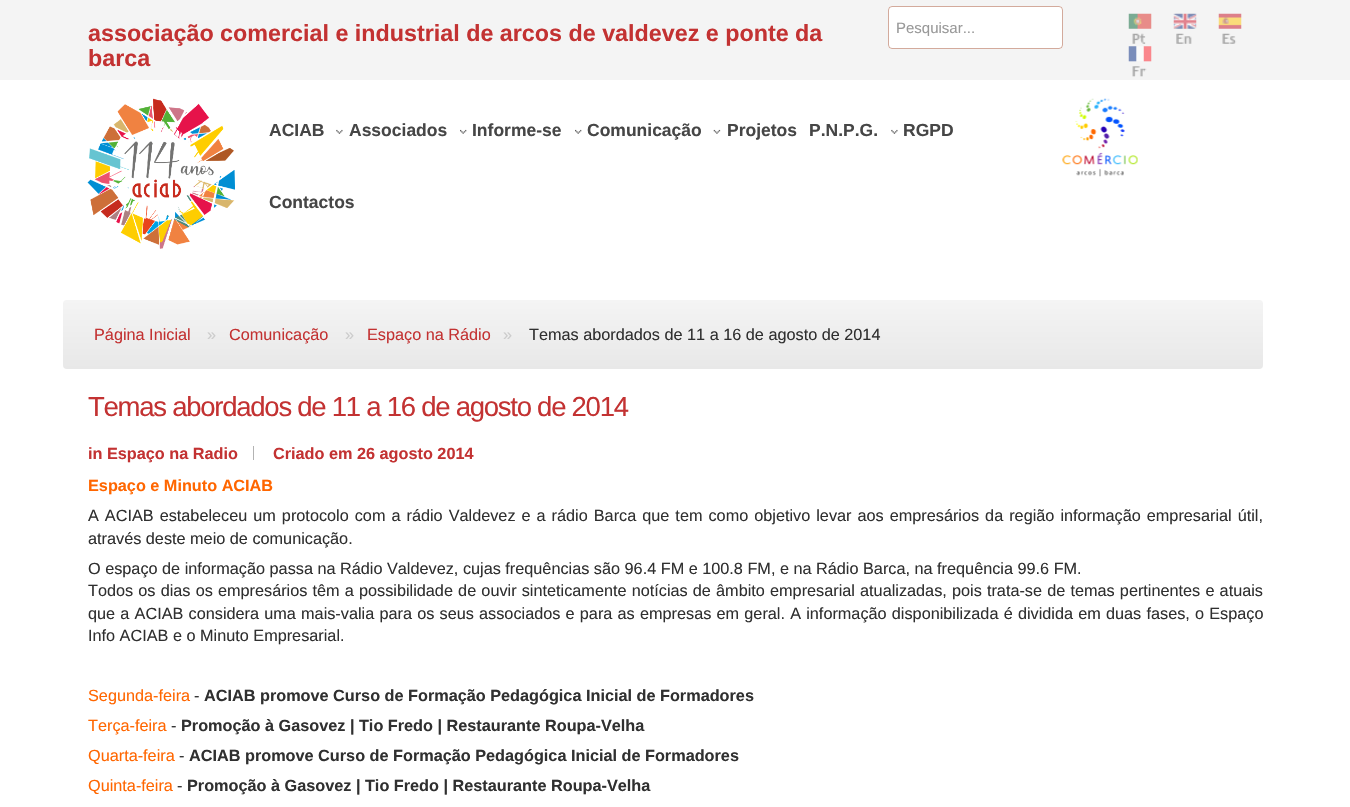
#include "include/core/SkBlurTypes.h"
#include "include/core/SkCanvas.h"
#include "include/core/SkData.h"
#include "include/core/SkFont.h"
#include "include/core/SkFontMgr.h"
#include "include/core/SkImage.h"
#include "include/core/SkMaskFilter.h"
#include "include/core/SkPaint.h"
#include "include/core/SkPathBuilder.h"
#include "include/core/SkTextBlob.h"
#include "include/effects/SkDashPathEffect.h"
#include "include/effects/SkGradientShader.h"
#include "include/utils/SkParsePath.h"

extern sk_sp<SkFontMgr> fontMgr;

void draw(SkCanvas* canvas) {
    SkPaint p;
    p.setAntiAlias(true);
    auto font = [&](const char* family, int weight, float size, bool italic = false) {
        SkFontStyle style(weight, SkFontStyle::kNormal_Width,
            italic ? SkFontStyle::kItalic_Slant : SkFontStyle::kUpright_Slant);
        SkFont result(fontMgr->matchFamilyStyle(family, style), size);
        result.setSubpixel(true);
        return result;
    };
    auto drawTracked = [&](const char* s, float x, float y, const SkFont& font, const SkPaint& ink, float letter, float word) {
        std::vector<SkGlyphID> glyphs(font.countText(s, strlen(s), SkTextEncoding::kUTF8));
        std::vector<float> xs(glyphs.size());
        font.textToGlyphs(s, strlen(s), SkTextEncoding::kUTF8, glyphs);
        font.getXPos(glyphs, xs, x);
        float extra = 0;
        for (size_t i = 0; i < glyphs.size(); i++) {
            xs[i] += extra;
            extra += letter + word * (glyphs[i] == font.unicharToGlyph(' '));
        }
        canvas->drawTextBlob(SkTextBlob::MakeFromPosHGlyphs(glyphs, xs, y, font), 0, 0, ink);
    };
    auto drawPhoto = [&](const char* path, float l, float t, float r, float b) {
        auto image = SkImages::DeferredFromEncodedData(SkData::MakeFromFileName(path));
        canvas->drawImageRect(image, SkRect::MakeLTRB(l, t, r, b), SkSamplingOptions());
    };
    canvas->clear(0xFFFFFFFF);
    p.setColor(0xFFF4F4F4);
    canvas->drawRect(SkRect::MakeLTRB(0, 0, 1350, 80), p);
    auto font1 = font("Liberation Sans", 700, 23.3f);
    p.setColor(0xFFC33232);
    canvas->drawString("associação comercial e industrial de arcos de valdevez e ponte da", 88, 41, font1, p);
    canvas->drawString("barca", 88, 66, font1, p);
    p.setColor(0xFFFFFFFF);
    canvas->drawRoundRect(SkRect::MakeLTRB(888, 6, 1063, 49), 4, 4, p);
    p.setStyle(SkPaint::kStroke_Style);
    p.setStrokeWidth(1);
    p.setColor(0x638D2300);
    canvas->drawRoundRect(SkRect::MakeLTRB(888.5f, 6.5f, 1062.5f, 48.5f), 3.5f, 3.5f, p);
    auto font2 = font("Liberation Sans", 400, 15);
    p.setStyle(SkPaint::kFill_Style);
    p.setColor(0xFF999999);
    canvas->drawString("Pesquisar...", 896, 33, font2, p);
    drawPhoto("media/1.png", 1128, 13, 1152, 44);
    drawPhoto("media/2.png", 1173, 13, 1197, 44);
    drawPhoto("media/3.png", 1218, 13, 1242, 44);
    drawPhoto("media/4.png", 1128, 46, 1152, 77);
    drawPhoto("media/5.png", 87, 98, 235, 249);
    auto font3 = font("Liberation Sans", 700, 17.5f);
    p.setColor(0xFF464646);
    canvas->drawString("ACIAB", 269, 136, font3, p);
    drawPhoto("media/6.png", 336, 129, 343, 134);
    canvas->drawString("Associados", 349, 136, font3, p);
    drawPhoto("media/7.png", 460, 129, 467, 134);
    canvas->drawString("Informe-se", 472, 136, font3, p);
    drawPhoto("media/7.png", 575, 129, 582, 134);
    canvas->drawString("Comunicação", 587, 136, font3, p);
    drawPhoto("media/8.png", 713, 129, 721, 134);
    canvas->drawString("Projetos", 727, 136, font3, p);
    canvas->drawString("P.N.P.G.", 809, 136, font3, p);
    drawPhoto("media/6.png", 891, 129, 898, 134);
    canvas->drawString("RGPD", 903, 136, font3, p);
    canvas->drawString("Contactos", 269, 208, font3, p);
    drawPhoto("media/9.png", 1062, 98, 1138, 177);
    {
        const SkColor colors[] = {0xFFF4F4F4, 0xFFE8E8E8};
        const float stops[] = {0, 1};
        const SkPoint ends[] = {{663, 300}, {663, 369}};
        p.setShader(SkGradientShader::MakeLinear(ends, colors, stops, 2, SkTileMode::kClamp));
        p.setAlpha(255);
    }
    canvas->drawRoundRect(SkRect::MakeLTRB(63, 300, 1263, 369), 4, 4, p);
    auto font4 = font("Liberation Sans", 400, 16.25f);
    p.setShader(nullptr);
    p.setColor(0xFFC33232);
    canvas->drawString("Página Inicial", 94, 340, font4, p);
    p.setColor(0xFFCCCCCC);
    canvas->drawString("»", 207, 340, font4, p);
    p.setColor(0xFFC33232);
    canvas->drawString("Comunicação", 229, 340, font4, p);
    p.setColor(0xFFCCCCCC);
    canvas->drawString("»", 345, 340, font4, p);
    p.setColor(0xFFC33232);
    canvas->drawString("Espaço na Rádio", 367, 340, font4, p);
    p.setColor(0xFFCCCCCC);
    canvas->drawString("»", 503, 340, font4, p);
    p.setColor(0xFF303030);
    canvas->drawString("Temas abordados de 11 a 16 de agosto de 2014", 529, 340, font4, p);
    auto font5 = font("Liberation Sans", 400, 27.5f);
    p.setColor(0xFFC33232);
    drawTracked("Temas abordados de 11 a 16 de agosto de 2014", 88, 416, font5, p, -1.25f, 0);
    p.setColor(0xFFB3B3B3);
    canvas->drawRect(SkRect::MakeLTRB(253, 446, 254, 460), p);
    auto font6 = font("Liberation Sans", 700, 16.25f);
    p.setColor(0xFFC33232);
    canvas->drawString("in Espaço na Radio", 88, 459, font6, p);
    canvas->drawString("Criado em 26 agosto 2014", 273, 459, font6, p);
    p.setColor(0xFFFF6600);
    canvas->drawString("Espaço e Minuto ACIAB", 88, 491, font6, p);
    p.setColor(0xFF303030);
    drawTracked("A ACIAB estabeleceu um protocolo com a rádio Valdevez e a rádio Barca que tem como objetivo levar aos empresários da região informação empresarial útil,", 88, 521, font4, p, 0, 1.5f);
    canvas->drawString("através deste meio de comunicação.", 88, 544, font4, p);
    canvas->drawString("O espaço de informação passa na Rádio Valdevez, cujas frequências são 96.4 FM e 100.8 FM, e na Rádio Barca, na frequência 99.6 FM.", 88, 574, font4, p);
    drawTracked("Todos os dias os empresários têm a possibilidade de ouvir sinteticamente notícias de âmbito empresarial atualizadas, pois trata-se de temas pertinentes e atuais", 88, 596, font4, p, 0, 0.65f);
    drawTracked("que a ACIAB considera uma mais-valia para os seus associados e para as empresas em geral. A informação disponibilizada é dividida em duas fases, o Espaço", 88, 619, font4, p, 0, 0.7f);
    canvas->drawString("Info ACIAB e o Minuto Empresarial.", 88, 641, font4, p);
    p.setColor(0xFFFF6600);
    canvas->drawString("Segunda-feira", 88, 701, font4, p);
    p.setColor(0xFF303030);
    canvas->drawString("-", 194, 701, font4, p);
    canvas->drawString("ACIAB promove Curso de Formação Pedagógica Inicial de Formadores", 204, 701, font6, p);
    p.setColor(0xFFFF6600);
    canvas->drawString("Terça-feira", 88, 731, font4, p);
    p.setColor(0xFF303030);
    canvas->drawString("-", 171, 731, font4, p);
    canvas->drawString("Promoção à Gasovez | Tio Fredo | Restaurante Roupa-Velha", 181, 731, font6, p);
    p.setColor(0xFFFF6600);
    canvas->drawString("Quarta-feira", 88, 761, font4, p);
    p.setColor(0xFF303030);
    canvas->drawString("-", 179, 761, font4, p);
    canvas->drawString("ACIAB promove Curso de Formação Pedagógica Inicial de Formadores", 189, 761, font6, p);
    p.setColor(0xFFFF6600);
    canvas->drawString("Quinta-feira", 88, 791, font4, p);
    p.setColor(0xFF303030);
    canvas->drawString("-", 177, 791, font4, p);
    canvas->drawString("Promoção à Gasovez | Tio Fredo | Restaurante Roupa-Velha", 187, 791, font6, p);
}
